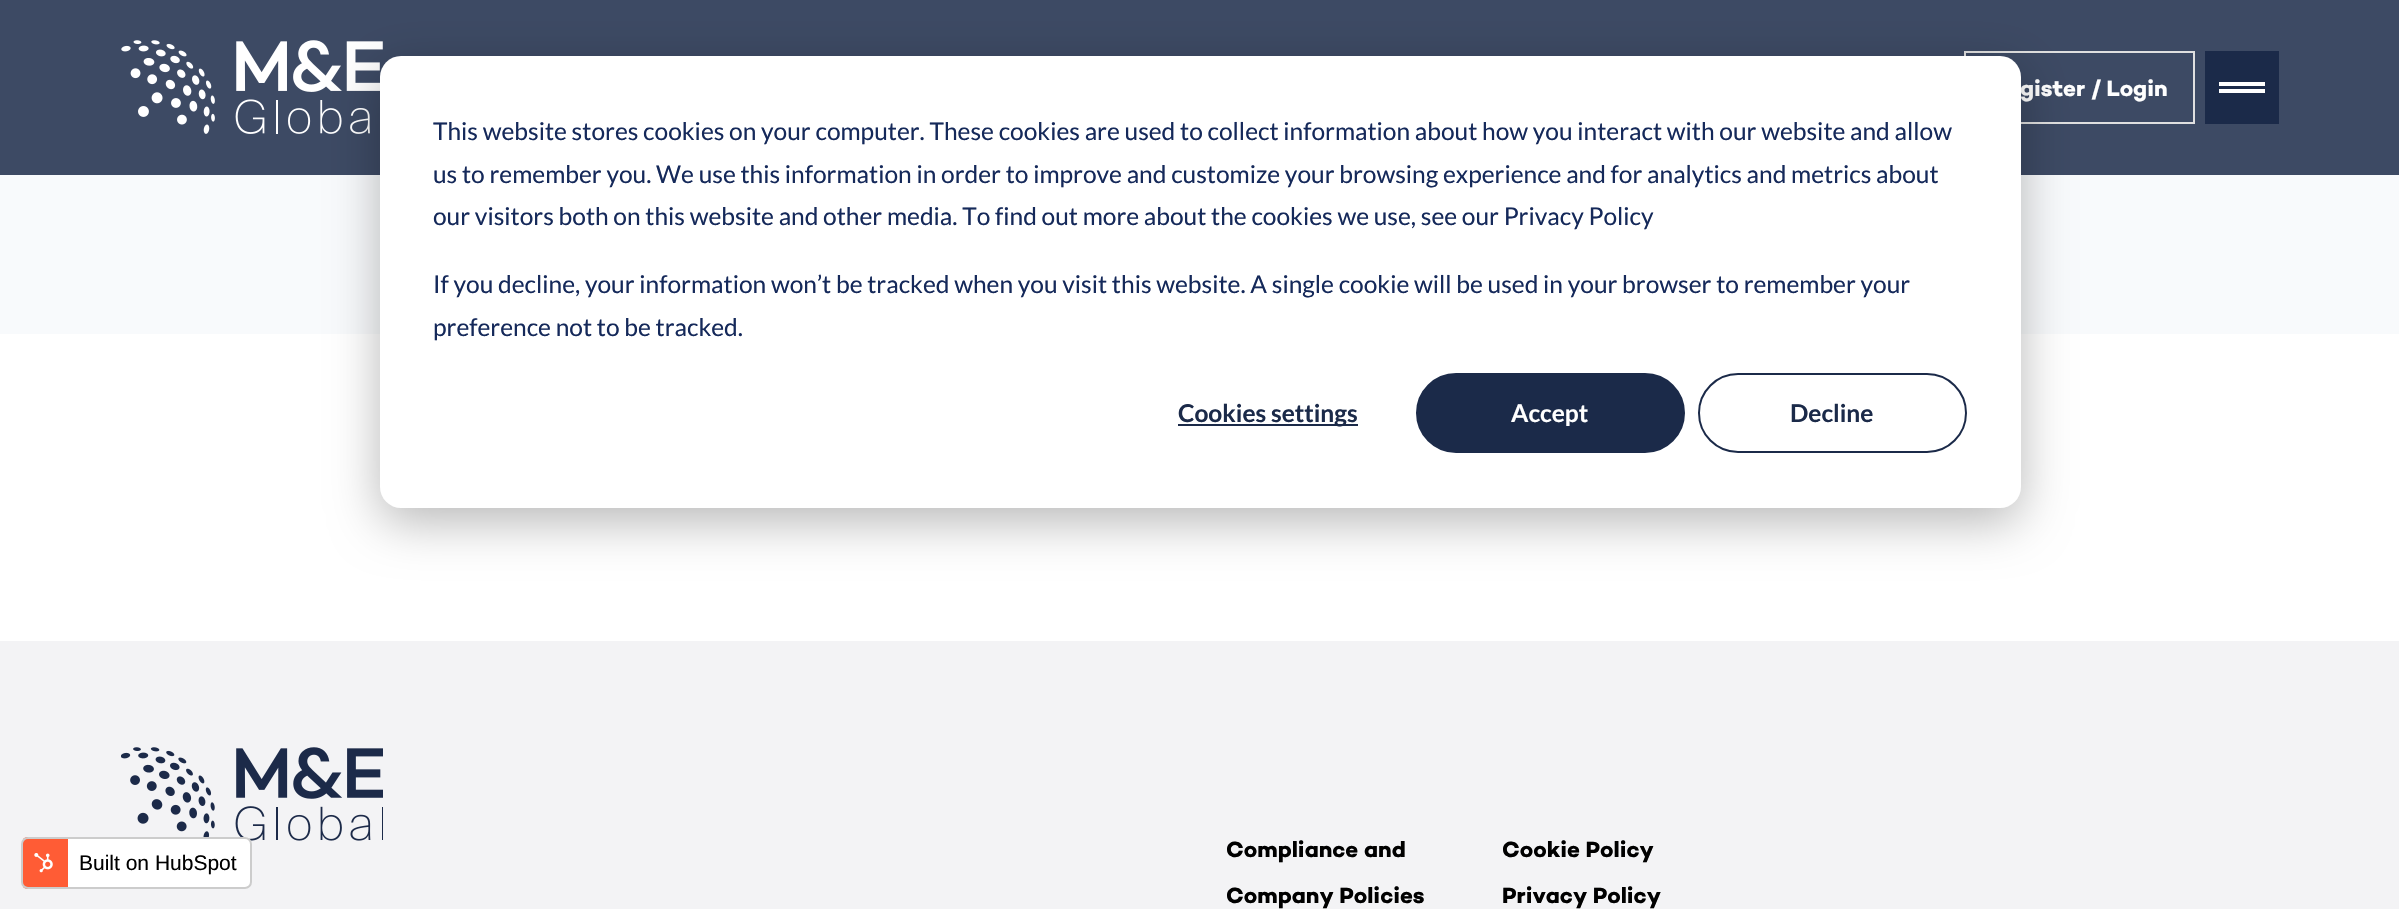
#include "include/core/SkBlurTypes.h"
#include "include/core/SkCanvas.h"
#include "include/core/SkData.h"
#include "include/core/SkFont.h"
#include "include/core/SkFontMgr.h"
#include "include/core/SkImage.h"
#include "include/core/SkMaskFilter.h"
#include "include/core/SkPaint.h"
#include "include/core/SkPathBuilder.h"
#include "include/core/SkTextBlob.h"
#include "include/effects/SkDashPathEffect.h"
#include "include/effects/SkGradientShader.h"
#include "include/utils/SkParsePath.h"

extern sk_sp<SkFontMgr> fontMgr;

void draw(SkCanvas* canvas) {
    SkPaint p;
    p.setAntiAlias(true);
    auto font = [&](const char* family, int weight, float size, bool italic = false) {
        SkFontStyle style(weight, SkFontStyle::kNormal_Width,
            italic ? SkFontStyle::kItalic_Slant : SkFontStyle::kUpright_Slant);
        SkFont result(fontMgr->matchFamilyStyle(family, style), size);
        result.setSubpixel(true);
        return result;
    };
    auto drawPhoto = [&](const char* path, float l, float t, float r, float b) {
        auto image = SkImages::DeferredFromEncodedData(SkData::MakeFromFileName(path));
        canvas->drawImageRect(image, SkRect::MakeLTRB(l, t, r, b), SkSamplingOptions());
    };
    canvas->clear(0xFFFFFFFF);
    p.setColor(0xFF3D4A64);
    canvas->drawRect(SkRect::MakeLTRB(0, 0, 2399, 175), p);
    drawPhoto("media/1.png", 121, 40, 383, 134);
    p.setStyle(SkPaint::kStroke_Style);
    p.setStrokeWidth(2);
    p.setColor(0xFFE0E0E0);
    canvas->drawRect(SkRect::MakeLTRB(1965, 52, 2194, 123), p);
    auto font1 = font("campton", 700, 22.5f);
    p.setStyle(SkPaint::kFill_Style);
    p.setColor(0xFFFFFFFF);
    canvas->drawString("gister / Login", 2020, 96, font1, p);
    {
        const struct { float l, t, r, b; SkColor color; } items[] = {
            {2205, 51, 2279, 124, 0xFF1B2A49},
            {2219, 82, 2265, 86, 0xFFFFFFFF},
            {2219, 89, 2265, 93, 0xFFFFFFFF},
            {0, 175, 2399, 334, 0xFFF8FAFC},
            {0, 641, 2399, 909, 0xFFF3F3F5},
        };
        for (auto [l, t, r, b, color] : items) {
            p.setColor(color);
            canvas->drawRect(SkRect::MakeLTRB(l, t, r, b), p);
        }
    }
    drawPhoto("media/2.png", 121, 747, 383, 841);
    p.setColor(0xFF000000);
    {
        const struct { const char* s; float x, y; } items[] = {
            {"Compliance and", 1226, 857},
            {"Company Policies", 1226, 903},
            {"Cookie Policy", 1502, 857},
            {"Privacy Policy", 1502, 903},
        };
        for (auto [s, x, y] : items) {
            canvas->drawString(s, x, y, font1, p);
        }
    }
    p.setColor(0x47000000);
    p.setMaskFilter(SkMaskFilter::MakeBlur(kNormal_SkBlurStyle, 24.5f));
    canvas->drawRoundRect(SkRect::MakeLTRB(380, 70, 2021, 522), 21, 21, p);
    p.setMaskFilter(nullptr);
    p.setColor(0xFFFFFFFF);
    canvas->drawRoundRect(SkRect::MakeLTRB(380, 56, 2021, 508), 21, 21, p);
    auto font2 = font("Lato", 400, 24.5f);
    p.setColor(0xFF15295A);
    {
        const struct { const char* s; float x, y; } items[] = {
            {"This website stores cookies on your computer. These cookies are used to collect information about how you interact with our website and allow", 433, 140},
            {"us to remember you. We use this information in order to improve and customize your browsing experience and for analytics and metrics about", 433, 183},
            {"our visitors both on this website and other media. To find out more about the cookies we use, see our Privacy Policy", 433, 225},
            {"If you decline, your information won’t be tracked when you visit this website. A single cookie will be used in your browser to remember your", 433, 293},
            {"preference not to be tracked.", 433, 336},
        };
        for (auto [s, x, y] : items) {
            canvas->drawString(s, x, y, font2, p);
        }
    }
    p.setColor(0xFF1B2A49);
    canvas->drawRect(SkRect::MakeLTRB(1178, 424, 1358, 426), p);
    auto font3 = font("Lato", 700, 24.5f);
    canvas->drawString("Cookies settings", 1178, 422, font3, p);
    canvas->drawRoundRect(SkRect::MakeLTRB(1417, 374, 1684, 452), 39, 39, p);
    p.setStyle(SkPaint::kStroke_Style);
    canvas->drawRoundRect(SkRect::MakeLTRB(1417, 374, 1684, 452), 39, 39, p);
    p.setStyle(SkPaint::kFill_Style);
    p.setColor(0xFFFFFFFF);
    canvas->drawString("Accept", 1511, 422, font3, p);
    p.setStyle(SkPaint::kStroke_Style);
    p.setColor(0xFF1B2A49);
    canvas->drawRoundRect(SkRect::MakeLTRB(1699, 374, 1966, 452), 39, 39, p);
    p.setStyle(SkPaint::kFill_Style);
    canvas->drawString("Decline", 1790, 422, font3, p);
    canvas->save();
    canvas->clipPath(SkPathBuilder().moveTo(28, 837).lineTo(245, 837).cubicTo(249, 837, 252, 840, 252, 844).lineTo(252, 882).cubicTo(252, 886, 249, 889, 245, 889).lineTo(28, 889).cubicTo(24, 889, 21, 886, 21, 882).lineTo(21, 844).cubicTo(21, 840, 24, 837, 28, 837).close().detach(), true);
    p.setColor(0xFFFF5C35);
    canvas->drawRect(SkRect::MakeLTRB(23, 837, 68, 889), p);
    p.setColor(0xFFFFFFFF);
    canvas->drawRect(SkRect::MakeLTRB(68, 837, 250, 889), p);
    canvas->restore();
    p.setStyle(SkPaint::kStroke_Style);
    p.setColor(0xFFCCCCCC);
    canvas->drawRoundRect(SkRect::MakeLTRB(22, 838, 251, 888), 6, 6, p);
    drawPhoto("media/3.png", 34, 853, 53, 873);
    auto font4 = font("Liberation Sans", 400, 21);
    p.setStyle(SkPaint::kFill_Style);
    p.setColor(0xFF000000);
    canvas->drawString("Built on HubSpot", 79, 870, font4, p);
}
